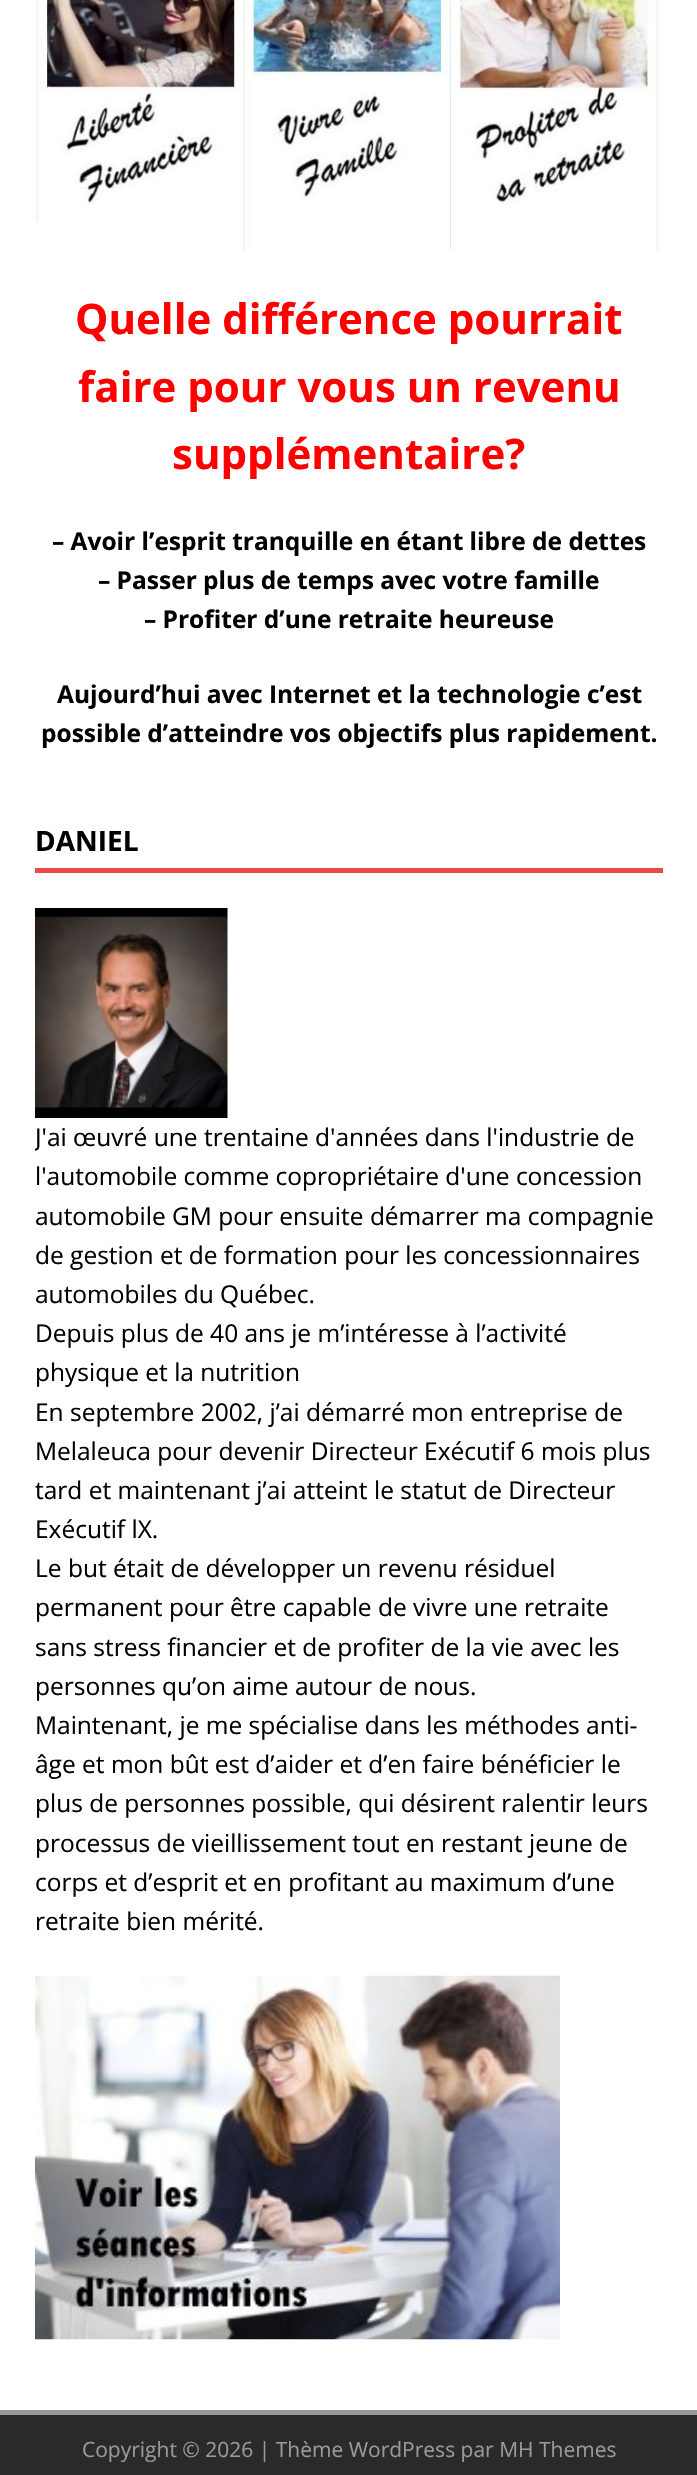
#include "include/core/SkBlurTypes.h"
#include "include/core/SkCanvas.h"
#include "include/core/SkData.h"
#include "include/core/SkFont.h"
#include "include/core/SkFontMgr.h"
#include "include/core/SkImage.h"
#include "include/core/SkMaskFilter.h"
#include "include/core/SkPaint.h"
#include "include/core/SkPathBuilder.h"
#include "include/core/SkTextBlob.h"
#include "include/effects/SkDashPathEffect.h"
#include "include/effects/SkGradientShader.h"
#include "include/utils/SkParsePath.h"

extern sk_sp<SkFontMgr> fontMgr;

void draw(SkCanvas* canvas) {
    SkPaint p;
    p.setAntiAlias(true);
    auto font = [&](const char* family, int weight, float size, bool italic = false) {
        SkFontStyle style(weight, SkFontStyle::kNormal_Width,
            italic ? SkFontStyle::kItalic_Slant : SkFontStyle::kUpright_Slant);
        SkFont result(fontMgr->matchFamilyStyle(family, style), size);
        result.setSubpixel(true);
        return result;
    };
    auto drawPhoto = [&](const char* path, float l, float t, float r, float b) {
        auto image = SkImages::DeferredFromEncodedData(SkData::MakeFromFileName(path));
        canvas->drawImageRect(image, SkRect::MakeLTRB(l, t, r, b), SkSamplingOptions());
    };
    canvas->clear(0xFFFFFFFF);
    drawPhoto("media/1.png", 35, 0, 660, 250);
    auto font1 = font("Open Sans", 700, 42);
    p.setColor(0xFFFF0000);
    {
        const struct { const char* s; float x, y; } items[] = {
            {"Quelle différence pourrait", 75, 334},
            {"faire pour vous un revenu", 78, 402},
            {"supplémentaire?", 172, 469},
        };
        for (auto [s, x, y] : items) {
            canvas->drawString(s, x, y, font1, p);
        }
    }
    auto font2 = font("Open Sans", 700, 24.5f);
    p.setColor(0xFF000000);
    {
        const struct { const char* s; float x, y; } items[] = {
            {"– Avoir l’esprit tranquille en étant libre de dettes", 52, 550},
            {"– Passer plus de temps avec votre famille", 98, 589},
            {"– Profiter d’une retraite heureuse", 144, 628},
            {"Aujourd’hui avec Internet et la technologie c’est", 57, 703},
            {"possible d’atteindre vos objectifs plus rapidement.", 41, 742},
        };
        for (auto [s, x, y] : items) {
            canvas->drawString(s, x, y, font2, p);
        }
    }
    p.setColor(0xFFE64946);
    canvas->drawRect(SkRect::MakeLTRB(35, 868, 663, 873), p);
    auto font3 = font("Open Sans", 700, 28);
    p.setColor(0xFF000000);
    canvas->drawString("DANIEL", 35, 851, font3, p);
    drawPhoto("media/2.png", 35, 908, 228, 1118);
    canvas->save();
    canvas->clipRect(SkRect::MakeLTRB(35, 823, 663, 1941));
    auto font4 = font("Open Sans", 400, 24.5f);
    canvas->drawString("J'ai œuvré une trentaine d'années dans l'industrie de", 35, 1146, font4, p);
    canvas->restore();
    {
        const struct { const char* s; float x, y; } items[] = {
            {"l'automobile comme copropriétaire d'une concession", 35, 1185},
            {"automobile GM pour ensuite démarrer ma compagnie", 35, 1225},
            {"de gestion et de formation pour les concessionnaires", 35, 1264},
            {"automobiles du Québec.", 35, 1303},
            {"Depuis plus de 40 ans je m’intéresse à l’activité", 35, 1342},
            {"physique et la nutrition", 35, 1381},
            {"En septembre 2002, j’ai démarré mon entreprise de", 35, 1421},
            {"Melaleuca pour devenir Directeur Exécutif 6 mois plus", 35, 1460},
            {"tard et maintenant j’ai atteint le statut de Directeur", 35, 1499},
            {"Exécutif lX.", 35, 1538},
            {"Le but était de développer un revenu résiduel", 35, 1577},
            {"permanent pour être capable de vivre une retraite", 35, 1616},
            {"sans stress financier et de profiter de la vie avec les", 35, 1656},
            {"personnes qu’on aime autour de nous.", 35, 1695},
            {"Maintenant, je me spécialise dans les méthodes anti-", 35, 1734},
            {"âge et mon bût est d’aider et d’en faire bénéficier le", 35, 1773},
            {"plus de personnes possible, qui désirent ralentir leurs", 35, 1812},
            {"processus de vieillissement tout en restant jeune de", 35, 1852},
            {"corps et d’esprit et en profitant au maximum d’une", 35, 1891},
            {"retraite bien mérité.", 35, 1930},
        };
        for (auto [s, x, y] : items) {
            canvas->drawString(s, x, y, font4, p);
        }
    }
    drawPhoto("media/3.png", 35, 1975, 560, 2340);
    p.setColor(0xFF2A2A2A);
    canvas->drawRect(SkRect::MakeLTRB(0, 2415, 697, 2475), p);
    p.setColor(0xFF999999);
    canvas->drawRect(SkRect::MakeLTRB(0, 2410, 697, 2415), p);
    auto font5 = font("Open Sans", 400, 21);
    canvas->drawString("Copyright © 2026 | Thème WordPress par MH Themes", 82, 2457, font5, p);
}
